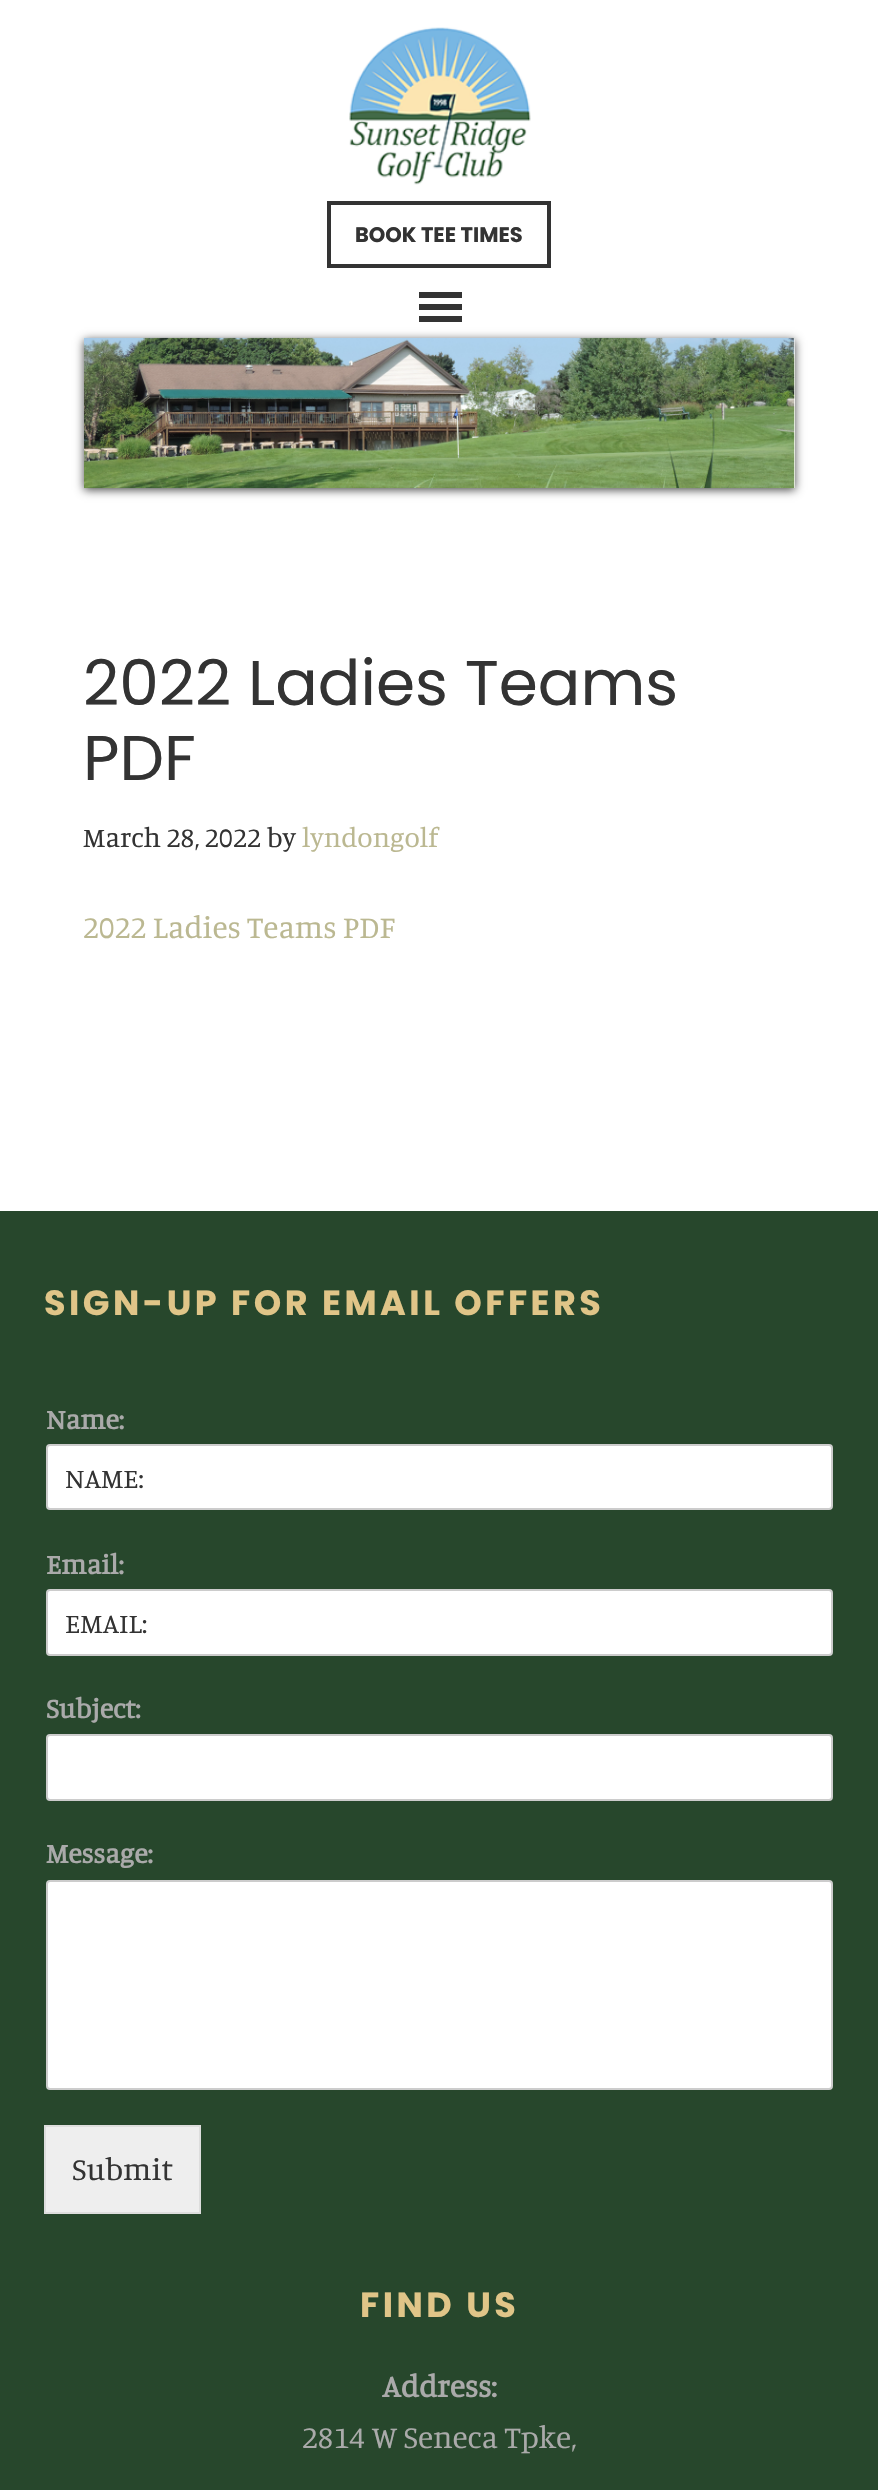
#include "include/core/SkBlurTypes.h"
#include "include/core/SkCanvas.h"
#include "include/core/SkData.h"
#include "include/core/SkFont.h"
#include "include/core/SkFontMgr.h"
#include "include/core/SkImage.h"
#include "include/core/SkMaskFilter.h"
#include "include/core/SkPaint.h"
#include "include/core/SkPathBuilder.h"
#include "include/core/SkTextBlob.h"
#include "include/effects/SkDashPathEffect.h"
#include "include/effects/SkGradientShader.h"
#include "include/utils/SkParsePath.h"

extern sk_sp<SkFontMgr> fontMgr;

void draw(SkCanvas* canvas) {
    SkPaint p;
    p.setAntiAlias(true);
    auto font = [&](const char* family, int weight, float size, bool italic = false) {
        SkFontStyle style(weight, SkFontStyle::kNormal_Width,
            italic ? SkFontStyle::kItalic_Slant : SkFontStyle::kUpright_Slant);
        SkFont result(fontMgr->matchFamilyStyle(family, style), size);
        result.setSubpixel(true);
        return result;
    };
    auto drawTracked = [&](const char* s, float x, float y, const SkFont& font, const SkPaint& ink, float letter, float word) {
        std::vector<SkGlyphID> glyphs(font.countText(s, strlen(s), SkTextEncoding::kUTF8));
        std::vector<float> xs(glyphs.size());
        font.textToGlyphs(s, strlen(s), SkTextEncoding::kUTF8, glyphs);
        font.getXPos(glyphs, xs, x);
        float extra = 0;
        for (size_t i = 0; i < glyphs.size(); i++) {
            xs[i] += extra;
            extra += letter + word * (glyphs[i] == font.unicharToGlyph(' '));
        }
        canvas->drawTextBlob(SkTextBlob::MakeFromPosHGlyphs(glyphs, xs, y, font), 0, 0, ink);
    };
    auto drawPhoto = [&](const char* path, float l, float t, float r, float b) {
        auto image = SkImages::DeferredFromEncodedData(SkData::MakeFromFileName(path));
        canvas->drawImageRect(image, SkRect::MakeLTRB(l, t, r, b), SkSamplingOptions());
    };
    canvas->clear(0xFFFFFFFF);
    drawPhoto("media/1.png", 349, 27, 531, 185);
    p.setStyle(SkPaint::kStroke_Style);
    p.setStrokeWidth(4);
    p.setColor(0xFF333333);
    canvas->drawRect(SkRect::MakeLTRB(329, 203, 549, 266), p);
    auto font1 = font("Poppins", 700, 21);
    p.setStyle(SkPaint::kFill_Style);
    canvas->drawString("BOOK TEE TIMES", 355, 242, font1, p);
    canvas->drawPath(SkPathBuilder().moveTo(419, 322).lineTo(462, 322).lineTo(462, 316).lineTo(419, 316).close().moveTo(419, 292).lineTo(419, 298).lineTo(462, 298).lineTo(462, 292).close().moveTo(419, 310).lineTo(462, 310).lineTo(462, 304).lineTo(419, 304).close().detach(), p);
    p.setColor(0xFF4A4A4A);
    p.setMaskFilter(SkMaskFilter::MakeBlur(kNormal_SkBlurStyle, 4.5f));
    canvas->drawRect(SkRect::MakeLTRB(84, 340, 795, 490), p);
    p.setMaskFilter(nullptr);
    p.setColor(0xFFFFFFFF);
    canvas->drawRect(SkRect::MakeLTRB(794, 338, 795, 488), p);
    drawPhoto("media/2.png", 84, 337, 795, 489);
    auto font2 = font("Poppins", 400, 63);
    p.setColor(0xFF333333);
    canvas->drawString("2022 Ladies Teams", 83, 705, font2, p);
    canvas->drawString("PDF", 83, 780, font2, p);
    auto font3 = font("Manuale", 400, 28);
    canvas->drawString("March 28, 2022 by", 83, 847, font3, p);
    p.setColor(0xFFBBB891);
    canvas->drawString("lyndongolf", 302, 847, font3, p);
    auto font4 = font("Manuale", 400, 31.5f);
    canvas->drawString("2022 Ladies Teams PDF", 83, 938, font4, p);
    p.setColor(0xFF27472C);
    canvas->drawRect(SkRect::MakeLTRB(0, 1211, 878, 2490), p);
    auto font5 = font("Poppins", 700, 35);
    p.setColor(0xFFE0C588);
    drawTracked("SIGN-UP FOR EMAIL OFFERS", 44, 1315, font5, p, 3.5f, 0);
    auto font6 = font("Manuale", 700, 28);
    p.setColor(0xFFAAAAAA);
    canvas->drawString("Name:", 46, 1429, font6, p);
    p.setColor(0xFFFFFFFF);
    canvas->drawRoundRect(SkRect::MakeLTRB(47, 1445, 832, 1509), 3, 3, p);
    p.setStyle(SkPaint::kStroke_Style);
    p.setStrokeWidth(2);
    p.setColor(0xFFCCCCCC);
    canvas->drawRoundRect(SkRect::MakeLTRB(47, 1445, 832, 1509), 3, 3, p);
    p.setStyle(SkPaint::kFill_Style);
    p.setColor(0xFF333333);
    canvas->drawString("NAME:", 65, 1488, font3, p);
    p.setColor(0xFFAAAAAA);
    canvas->drawString("Email:", 46, 1574, font6, p);
    p.setColor(0xFFFFFFFF);
    canvas->drawRoundRect(SkRect::MakeLTRB(47, 1590, 832, 1655), 3, 3, p);
    p.setStyle(SkPaint::kStroke_Style);
    p.setColor(0xFFCCCCCC);
    canvas->drawRoundRect(SkRect::MakeLTRB(47, 1590, 832, 1655), 3, 3, p);
    p.setStyle(SkPaint::kFill_Style);
    p.setColor(0xFF333333);
    canvas->drawString("EMAIL:", 65, 1633, font3, p);
    p.setColor(0xFFAAAAAA);
    canvas->drawString("Subject:", 46, 1718, font6, p);
    p.setColor(0xFFFFFFFF);
    canvas->drawRoundRect(SkRect::MakeLTRB(47, 1735, 832, 1800), 3, 3, p);
    p.setStyle(SkPaint::kStroke_Style);
    p.setColor(0xFFCCCCCC);
    canvas->drawRoundRect(SkRect::MakeLTRB(47, 1735, 832, 1800), 3, 3, p);
    p.setStyle(SkPaint::kFill_Style);
    p.setColor(0xFFAAAAAA);
    canvas->drawString("Message:", 46, 1863, font6, p);
    p.setColor(0xFFFFFFFF);
    canvas->drawRoundRect(SkRect::MakeLTRB(47, 1881, 832, 2089), 3, 3, p);
    p.setStyle(SkPaint::kStroke_Style);
    p.setColor(0xFFCCCCCC);
    canvas->drawRoundRect(SkRect::MakeLTRB(47, 1881, 832, 2089), 3, 3, p);
    p.setStyle(SkPaint::kFill_Style);
    p.setColor(0xFFEEEEEE);
    canvas->drawRect(SkRect::MakeLTRB(45, 2126, 200, 2213), p);
    p.setStyle(SkPaint::kStroke_Style);
    p.setColor(0xFFDDDDDD);
    canvas->drawRect(SkRect::MakeLTRB(45, 2126, 200, 2213), p);
    p.setStyle(SkPaint::kFill_Style);
    p.setColor(0xFF333333);
    canvas->drawString("Submit", 72, 2180, font4, p);
    p.setColor(0xFFE0C588);
    drawTracked("FIND US", 360, 2317, font5, p, 3.5f, 0);
    auto font7 = font("Manuale", 700, 31.5f);
    p.setColor(0xFFAAAAAA);
    canvas->drawString("Address:", 382, 2397, font7, p);
    canvas->drawString("2814 W Seneca Tpke,", 302, 2448, font4, p);
}
